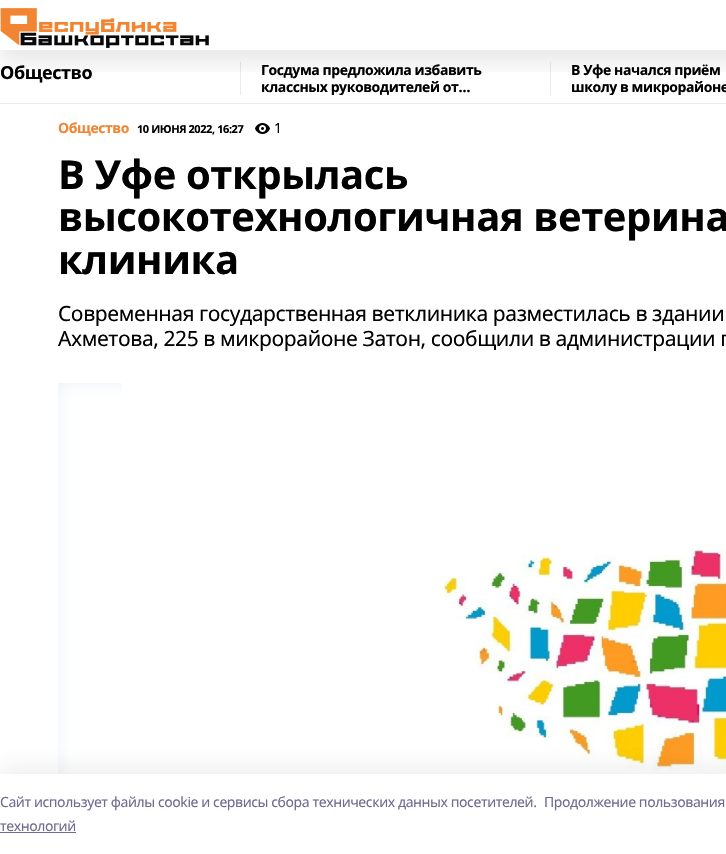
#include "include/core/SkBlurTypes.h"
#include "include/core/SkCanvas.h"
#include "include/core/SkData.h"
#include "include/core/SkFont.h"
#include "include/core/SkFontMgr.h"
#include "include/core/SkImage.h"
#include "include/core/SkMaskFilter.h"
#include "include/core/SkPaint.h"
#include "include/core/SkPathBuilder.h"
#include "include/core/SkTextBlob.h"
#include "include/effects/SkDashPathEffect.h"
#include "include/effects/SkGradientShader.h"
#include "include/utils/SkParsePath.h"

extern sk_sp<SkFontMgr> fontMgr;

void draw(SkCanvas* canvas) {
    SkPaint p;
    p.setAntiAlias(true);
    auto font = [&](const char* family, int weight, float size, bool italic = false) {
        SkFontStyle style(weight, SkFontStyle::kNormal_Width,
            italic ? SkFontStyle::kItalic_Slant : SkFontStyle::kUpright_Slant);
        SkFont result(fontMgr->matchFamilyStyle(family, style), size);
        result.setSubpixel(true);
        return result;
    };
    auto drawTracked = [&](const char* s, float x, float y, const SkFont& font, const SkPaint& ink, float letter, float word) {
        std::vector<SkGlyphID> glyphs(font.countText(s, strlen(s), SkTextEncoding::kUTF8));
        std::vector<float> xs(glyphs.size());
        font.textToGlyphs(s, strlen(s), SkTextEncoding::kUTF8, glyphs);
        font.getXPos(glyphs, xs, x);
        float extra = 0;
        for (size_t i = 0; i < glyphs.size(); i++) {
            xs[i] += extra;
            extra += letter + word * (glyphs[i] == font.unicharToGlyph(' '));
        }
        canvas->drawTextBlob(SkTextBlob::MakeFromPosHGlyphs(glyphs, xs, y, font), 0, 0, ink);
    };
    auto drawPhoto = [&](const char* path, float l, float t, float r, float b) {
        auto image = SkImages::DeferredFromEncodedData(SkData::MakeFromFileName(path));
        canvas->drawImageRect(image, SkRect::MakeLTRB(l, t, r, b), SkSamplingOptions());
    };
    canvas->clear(0xFFFFFFFF);
    p.setColor(0xFFEAEAEA);
    canvas->drawRect(SkRect::MakeLTRB(240, 62, 241, 95), p);
    canvas->drawRect(SkRect::MakeLTRB(550, 62, 551, 95), p);
    canvas->save();
    canvas->clipRect(SkRect::MakeLTRB(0, 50, 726, 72));
    p.setColor(0x14000000);
    p.setMaskFilter(SkMaskFilter::MakeBlur(kNormal_SkBlurStyle, 10));
    canvas->drawRect(SkRect::MakeLTRB(0, 15, 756, 65), p);
    p.setMaskFilter(nullptr);
    canvas->restore();
    drawPhoto("media/1.png", 0, 8, 209, 48);
    p.setColor(0xFFEAEAEA);
    canvas->drawRect(SkRect::MakeLTRB(0, 103, 726, 104), p);
    auto font1 = font("Noto Sans", 700, 18);
    p.setColor(0xFF000000);
    drawTracked("Общество", 0, 79, font1, p, -0.42f, 0);
    auto font2 = font("Noto Sans", 700, 14);
    drawTracked("Госдума предложила избавить", 261, 75, font2, p, -0.42f, 0);
    canvas->save();
    canvas->clipRect(SkRect::MakeLTRB(241, 62, 550, 95));
    drawTracked("классных руководителей от…", 261, 92, font2, p, -0.42f, 0);
    canvas->restore();
    drawTracked("В Уфе начался приём", 571, 75, font2, p, -0.42f, 0);
    canvas->save();
    canvas->clipRect(SkRect::MakeLTRB(551, 62, 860, 95));
    drawTracked("школу в микрорайоне", 571, 92, font2, p, -0.42f, 0);
    canvas->restore();
    p.setColor(0xFFF18532);
    drawTracked("Общество", 58, 133, font2, p, -0.42f, 0);
    auto font3 = font("Noto Sans", 700, 11);
    p.setColor(0xFF000000);
    drawTracked("10 ИЮНЯ 2022, 16:27", 137, 133, font3, p, -0.42f, 0);
    drawPhoto("media/2.png", 255, 123, 270, 134);
    auto font4 = font("Noto Sans", 400, 14);
    drawTracked("1", 274, 133, font4, p, -0.42f, 0);
    auto font5 = font("Noto Sans", 700, 40);
    {
        const struct { const char* s; float x, y; } items[] = {
            {"В Уфе открылась", 58, 189},
            {"высокотехнологичная ветерина", 58, 231},
            {"клиника", 58, 274},
        };
        for (auto [s, x, y] : items) {
            drawTracked(s, x, y, font5, p, -0.42f, 0);
        }
    }
    auto font6 = font("Noto Sans", 400, 21);
    drawTracked("Современная государственная ветклиника разместилась в здании", 58, 321, font6, p, -0.42f, 0);
    drawTracked("Ахметова, 225 в микрорайоне Затон, сообщили в администрации г", 58, 346, font6, p, -0.42f, 0);
    p.setColor(0xFFEDF2F7);
    canvas->drawRect(SkRect::MakeLTRB(58, 383, 122, 774), p);
    drawPhoto("media/3.png", 58, 383, 122, 774);
    drawPhoto("media/4.png", 122, 383, 726, 774);
    p.setColor(0x1414142B);
    p.setMaskFilter(SkMaskFilter::MakeBlur(kNormal_SkBlurStyle, 11.5f));
    canvas->drawRect(SkRect::MakeLTRB(0, 768, 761, 848), p);
    p.setMaskFilter(nullptr);
    p.setColor(0xFFFFFFFF);
    canvas->drawRect(SkRect::MakeLTRB(0, 774, 726, 854), p);
    p.setColor(0xFF6F6C90);
    {
        const struct { const char* s; float x, y; } items[] = {
            {"Cайт использует файлы cookie и сервисы сбора технических данных посетителей.", 0, 807},
            {"Продолжение пользования", 544, 807},
            {"технологий", 0, 831},
        };
        for (auto [s, x, y] : items) {
            drawTracked(s, x, y, font4, p, -0.42f, 0);
        }
    }
    canvas->drawRect(SkRect::MakeLTRB(0, 832, 76, 833), p);
}
